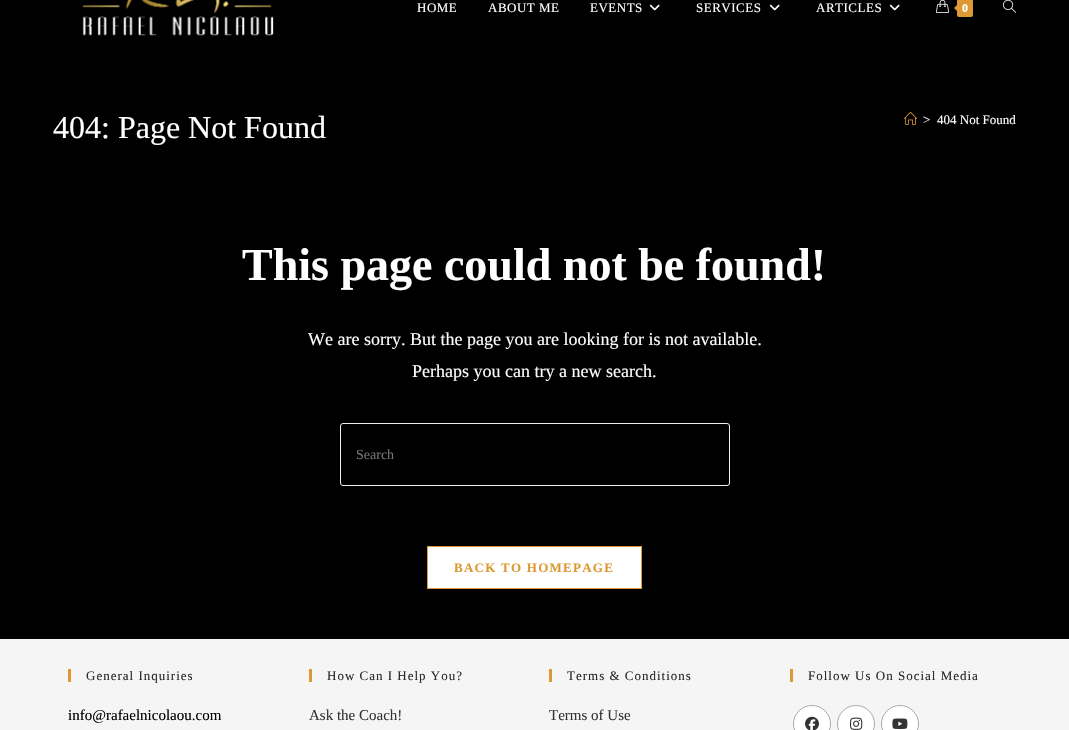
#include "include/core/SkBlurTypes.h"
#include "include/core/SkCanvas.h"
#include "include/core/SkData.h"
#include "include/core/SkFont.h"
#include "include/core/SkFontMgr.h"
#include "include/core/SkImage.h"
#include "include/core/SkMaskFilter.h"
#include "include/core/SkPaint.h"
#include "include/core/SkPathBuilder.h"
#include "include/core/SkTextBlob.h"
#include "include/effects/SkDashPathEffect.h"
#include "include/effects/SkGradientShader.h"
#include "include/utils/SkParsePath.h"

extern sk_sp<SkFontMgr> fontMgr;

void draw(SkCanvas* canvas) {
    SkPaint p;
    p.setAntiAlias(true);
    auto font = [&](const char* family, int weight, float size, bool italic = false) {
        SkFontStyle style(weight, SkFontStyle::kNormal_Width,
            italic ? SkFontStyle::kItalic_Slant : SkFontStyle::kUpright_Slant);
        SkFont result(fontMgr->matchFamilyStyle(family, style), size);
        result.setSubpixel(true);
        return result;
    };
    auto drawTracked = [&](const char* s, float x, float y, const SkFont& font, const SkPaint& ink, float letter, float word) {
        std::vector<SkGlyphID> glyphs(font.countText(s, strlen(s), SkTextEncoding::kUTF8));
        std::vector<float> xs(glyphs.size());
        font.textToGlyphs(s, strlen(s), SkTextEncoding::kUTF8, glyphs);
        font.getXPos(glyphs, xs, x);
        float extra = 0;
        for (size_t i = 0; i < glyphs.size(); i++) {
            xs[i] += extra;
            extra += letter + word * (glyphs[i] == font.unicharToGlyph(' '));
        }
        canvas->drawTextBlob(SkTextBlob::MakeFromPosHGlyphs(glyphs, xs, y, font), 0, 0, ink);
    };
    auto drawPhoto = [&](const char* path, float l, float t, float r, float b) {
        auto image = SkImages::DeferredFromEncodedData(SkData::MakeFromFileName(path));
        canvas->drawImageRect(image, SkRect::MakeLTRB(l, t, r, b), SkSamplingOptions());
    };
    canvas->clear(0xFF000000);
    drawPhoto("media/1.png", 82, 0, 274, 36);
    auto font1 = font("Liberation Serif", 400, 13);
    p.setColor(0xFFFFFFFF);
    {
        const struct { const char* s; float x, y; } items[] = {
            {"HOME", 417, 12},
            {"ABOUT ME", 488, 12},
            {"EVENTS", 590, 12},
        };
        for (auto [s, x, y] : items) {
            drawTracked(s, x, y, font1, p, 0.5f, 0);
        }
    }
    drawPhoto("media/2.png", 649, 4, 660, 11);
    drawTracked("SERVICES", 696, 12, font1, p, 0.5f, 0);
    drawPhoto("media/2.png", 769, 4, 780, 11);
    drawTracked("ARTICLES", 816, 12, font1, p, 0.5f, 0);
    drawPhoto("media/2.png", 889, 4, 900, 11);
    drawPhoto("media/3.png", 936, 0, 949, 13);
    p.setColor(0xFFDD9933);
    canvas->drawRoundRect(SkRect::MakeLTRB(957, -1, 973, 17), 2, 2, p);
    canvas->drawPath(SkPathBuilder().moveTo(959, 3).lineTo(959, 13).lineTo(954, 8).close().detach(), p);
    auto font2 = font("Liberation Serif", 700, 12);
    p.setColor(0xFFFFFFFF);
    canvas->drawString("0", 962, 12, font2, p);
    drawPhoto("media/4.png", 1003, 0, 1016, 13);
    auto font3 = font("Liberation Serif", 400, 32);
    canvas->drawString("404: Page Not Found", 53, 138, font3, p);
    drawPhoto("media/5.png", 904, 111, 917, 125);
    canvas->drawString(">", 923, 124, font1, p);
    canvas->drawString("404 Not Found", 937, 124, font1, p);
    auto font4 = font("Liberation Serif", 700, 46);
    canvas->drawString("This page could not be found!", 242, 280, font4, p);
    auto font5 = font("Liberation Serif", 400, 18);
    canvas->drawString("We are sorry. But the page you are looking for is not available.", 308, 345, font5, p);
    canvas->drawString("Perhaps you can try a new search.", 412, 377, font5, p);
    p.setStyle(SkPaint::kStroke_Style);
    p.setStrokeWidth(1);
    p.setColor(0xFFEEEEEE);
    canvas->drawRoundRect(SkRect::MakeLTRB(340.5f, 423.5f, 729.5f, 485.5f), 2.5f, 2.5f, p);
    auto font6 = font("Liberation Serif", 400, 14);
    p.setStyle(SkPaint::kFill_Style);
    p.setColor(0xFF757575);
    canvas->drawString("Search", 356, 459, font6, p);
    p.setColor(0xFFFFFFFF);
    canvas->drawRect(SkRect::MakeLTRB(427.5f, 546.5f, 641.5f, 588.5f), p);
    p.setStyle(SkPaint::kStroke_Style);
    p.setColor(0xFFDD9933);
    canvas->drawRect(SkRect::MakeLTRB(427.5f, 546.5f, 641.5f, 588.5f), p);
    auto font7 = font("Liberation Serif", 700, 13);
    p.setStyle(SkPaint::kFill_Style);
    drawTracked("BACK TO HOMEPAGE", 454, 572, font7, p, 1.25f, 0);
    p.setColor(0xFFF5F5F5);
    canvas->drawRect(SkRect::MakeLTRB(0, 639, 1069, 730), p);
    p.setColor(0xFFDD9933);
    canvas->drawRect(SkRect::MakeLTRB(68, 669, 71, 682), p);
    p.setColor(0xFF292929);
    drawTracked("General Inquiries", 86, 680, font1, p, 1, 0);
    auto font8 = font("Liberation Serif", 400, 15);
    p.setColor(0xFF000000);
    canvas->drawString("info@rafaelnicolaou.com", 68, 720, font8, p);
    p.setColor(0xFFDD9933);
    canvas->drawRect(SkRect::MakeLTRB(309, 669, 312, 682), p);
    p.setColor(0xFF292929);
    drawTracked("How Can I Help You?", 327, 680, font1, p, 1, 0);
    p.setColor(0xFF333333);
    canvas->drawString("Ask the Coach!", 309, 720, font8, p);
    p.setColor(0xFFDD9933);
    canvas->drawRect(SkRect::MakeLTRB(549, 669, 552, 682), p);
    p.setColor(0xFF292929);
    drawTracked("Terms & Conditions", 567, 680, font1, p, 1, 0);
    p.setColor(0xFF333333);
    canvas->drawString("Terms of Use", 549, 720, font8, p);
    p.setColor(0xFFDD9933);
    canvas->drawRect(SkRect::MakeLTRB(790, 669, 793, 682), p);
    p.setColor(0xFF292929);
    drawTracked("Follow Us On Social Media", 808, 680, font1, p, 1, 0);
    p.setColor(0xFFFFFFFF);
    canvas->drawCircle(812, 724, 18.5f, p);
    p.setStyle(SkPaint::kStroke_Style);
    p.setColor(0xFFAAAAAA);
    canvas->drawCircle(812, 724, 18.5f, p);
    drawPhoto("media/6.png", 805, 716, 819, 730);
    p.setStyle(SkPaint::kFill_Style);
    p.setColor(0xFFFFFFFF);
    canvas->drawCircle(856, 724, 18.5f, p);
    p.setStyle(SkPaint::kStroke_Style);
    p.setColor(0xFFAAAAAA);
    canvas->drawCircle(856, 724, 18.5f, p);
    drawPhoto("media/7.png", 850, 717, 863, 730);
    p.setStyle(SkPaint::kFill_Style);
    p.setColor(0xFFFFFFFF);
    canvas->drawCircle(900, 724, 18.5f, p);
    p.setStyle(SkPaint::kStroke_Style);
    p.setColor(0xFFAAAAAA);
    canvas->drawCircle(900, 724, 18.5f, p);
    drawPhoto("media/8.png", 892, 718, 908, 729);
}
